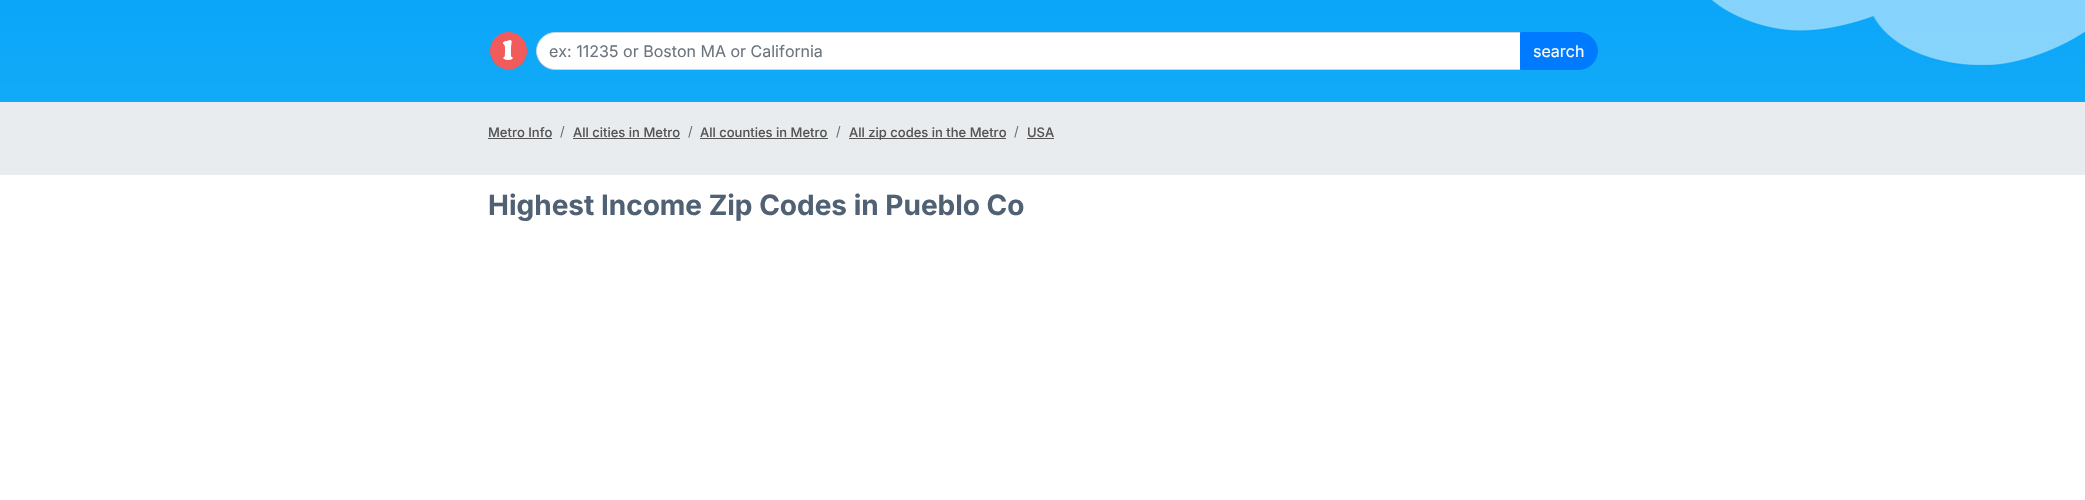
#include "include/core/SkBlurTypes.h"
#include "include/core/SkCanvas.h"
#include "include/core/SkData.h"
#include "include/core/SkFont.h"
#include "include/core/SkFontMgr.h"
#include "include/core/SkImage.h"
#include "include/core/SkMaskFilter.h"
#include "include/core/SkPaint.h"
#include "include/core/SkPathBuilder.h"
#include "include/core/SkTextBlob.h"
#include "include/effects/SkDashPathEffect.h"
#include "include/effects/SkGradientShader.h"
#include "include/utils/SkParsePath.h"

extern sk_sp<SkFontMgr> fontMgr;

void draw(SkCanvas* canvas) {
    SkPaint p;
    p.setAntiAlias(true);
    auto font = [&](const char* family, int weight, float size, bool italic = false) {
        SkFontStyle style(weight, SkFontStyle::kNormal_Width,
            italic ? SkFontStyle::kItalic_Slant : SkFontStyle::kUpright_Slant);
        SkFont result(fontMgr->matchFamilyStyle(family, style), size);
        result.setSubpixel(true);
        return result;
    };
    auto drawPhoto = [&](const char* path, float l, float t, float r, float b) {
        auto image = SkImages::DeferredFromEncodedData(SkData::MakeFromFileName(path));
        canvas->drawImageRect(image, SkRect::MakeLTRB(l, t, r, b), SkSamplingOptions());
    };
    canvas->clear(0xFFFFFFFF);
    drawPhoto("media/1.png", 0, 0, 2085, 102);
    drawPhoto("media/2.png", 490, 32, 527, 70);
    p.setColor(0xFFFFFFFF);
    canvas->drawPath(SkPathBuilder().moveTo(555, 32.5f).lineTo(1520.5f, 32.5f).lineTo(1520.5f, 69.5f).lineTo(555, 69.5f).cubicTo(545, 69.5f, 536.5f, 61, 536.5f, 51).cubicTo(536.5f, 41, 545, 32.5f, 555, 32.5f).close().detach(), p);
    p.setStyle(SkPaint::kStroke_Style);
    p.setStrokeWidth(1);
    p.setColor(0xFFCED4DA);
    canvas->drawPath(SkPathBuilder().moveTo(555, 32.5f).lineTo(1520.5f, 32.5f).lineTo(1520.5f, 69.5f).lineTo(555, 69.5f).cubicTo(545, 69.5f, 536.5f, 61, 536.5f, 51).cubicTo(536.5f, 41, 545, 32.5f, 555, 32.5f).close().detach(), p);
    auto font1 = font("Inter", 400, 16);
    p.setStyle(SkPaint::kFill_Style);
    p.setColor(0xFF6C757D);
    canvas->drawString("ex: 11235 or Boston MA or California", 549, 57, font1, p);
    p.setColor(0xFF007BFF);
    canvas->drawPath(SkPathBuilder().moveTo(1520.5f, 32.5f).lineTo(1579, 32.5f).cubicTo(1589, 32.5f, 1597.5f, 41, 1597.5f, 51).cubicTo(1597.5f, 61, 1589, 69.5f, 1579, 69.5f).lineTo(1520.5f, 69.5f).close().detach(), p);
    p.setStyle(SkPaint::kStroke_Style);
    canvas->drawPath(SkPathBuilder().moveTo(1520.5f, 32.5f).lineTo(1579, 32.5f).cubicTo(1589, 32.5f, 1597.5f, 41, 1597.5f, 51).cubicTo(1597.5f, 61, 1589, 69.5f, 1579, 69.5f).lineTo(1520.5f, 69.5f).close().detach(), p);
    p.setStyle(SkPaint::kFill_Style);
    p.setColor(0xFFFFFFFF);
    canvas->drawString("search", 1533, 57, font1, p);
    p.setColor(0xFFE9ECEF);
    canvas->drawRect(SkRect::MakeLTRB(0, 102, 2085, 175), p);
    auto font2 = font("Inter", 500, 13);
    p.setColor(0xFF555555);
    canvas->drawString("Metro Info", 488, 137, font2, p);
    canvas->drawRect(SkRect::MakeLTRB(488, 138, 552, 139), p);
    auto font3 = font("Inter", 400, 13);
    p.setColor(0xFF6C757D);
    canvas->drawString("/", 560, 136, font3, p);
    p.setColor(0xFF555555);
    canvas->drawString("All cities in Metro", 573, 137, font2, p);
    canvas->drawRect(SkRect::MakeLTRB(573, 138, 680, 139), p);
    p.setColor(0xFF6C757D);
    canvas->drawString("/", 688, 136, font3, p);
    p.setColor(0xFF555555);
    canvas->drawString("All counties in Metro", 700, 137, font2, p);
    canvas->drawRect(SkRect::MakeLTRB(700, 138, 828, 139), p);
    p.setColor(0xFF6C757D);
    canvas->drawString("/", 836, 136, font3, p);
    p.setColor(0xFF555555);
    canvas->drawRect(SkRect::MakeLTRB(849, 138, 1006, 139), p);
    canvas->drawString("All zip codes in the Metro", 849, 137, font2, p);
    p.setColor(0xFF6C757D);
    canvas->drawString("/", 1014, 136, font3, p);
    p.setColor(0xFF555555);
    canvas->drawString("USA", 1027, 137, font2, p);
    canvas->drawRect(SkRect::MakeLTRB(1027, 138, 1054, 139), p);
    auto font4 = font("Inter", 700, 28);
    p.setColor(0xFF506174);
    canvas->drawString("Highest Income Zip Codes in Pueblo Co", 488, 215, font4, p);
}
